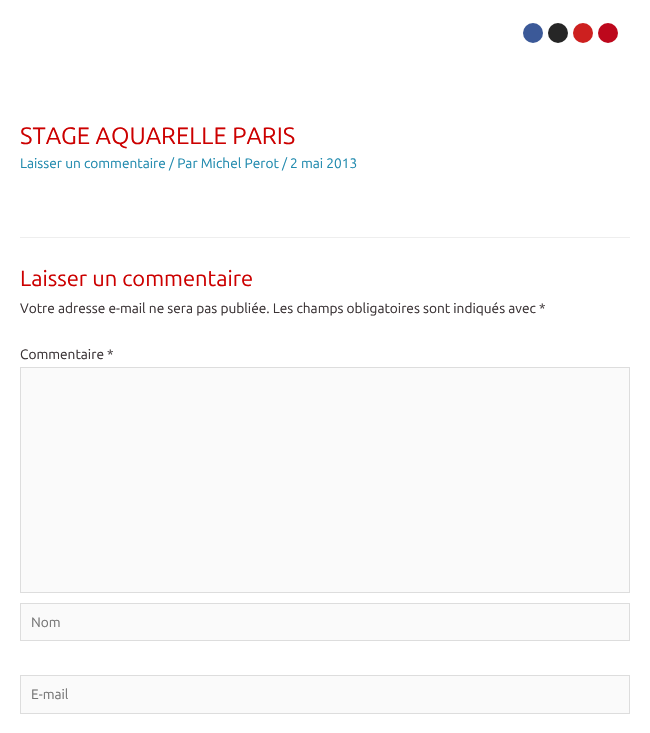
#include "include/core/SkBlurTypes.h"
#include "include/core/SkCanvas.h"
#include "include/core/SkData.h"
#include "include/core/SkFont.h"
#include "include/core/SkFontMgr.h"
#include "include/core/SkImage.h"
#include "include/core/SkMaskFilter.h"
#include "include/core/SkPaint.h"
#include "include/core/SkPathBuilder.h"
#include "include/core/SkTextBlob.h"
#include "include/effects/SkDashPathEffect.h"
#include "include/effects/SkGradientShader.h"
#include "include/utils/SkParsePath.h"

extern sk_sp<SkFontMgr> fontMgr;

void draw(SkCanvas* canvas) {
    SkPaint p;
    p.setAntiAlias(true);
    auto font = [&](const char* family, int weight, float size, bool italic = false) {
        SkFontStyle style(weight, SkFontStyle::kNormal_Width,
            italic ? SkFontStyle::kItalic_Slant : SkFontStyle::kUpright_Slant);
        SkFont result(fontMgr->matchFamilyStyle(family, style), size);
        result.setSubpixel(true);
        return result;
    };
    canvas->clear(0xFFFFFFFF);
    p.setColor(0xFF3B5998);
    canvas->drawCircle(533, 33, 10, p);
    p.setColor(0xFF262626);
    canvas->drawCircle(558, 33, 10, p);
    p.setColor(0xFFCD201F);
    canvas->drawCircle(583, 33, 10, p);
    p.setColor(0xFFBD081C);
    canvas->drawCircle(608, 33, 10, p);
    auto font1 = font("Ubuntu", 400, 23.75f);
    p.setColor(0xFFCC0000);
    canvas->drawString("STAGE AQUARELLE PARIS", 20, 144, font1, p);
    auto font2 = font("Ubuntu", 400, 13.7f);
    p.setColor(0xFF208AAE);
    canvas->drawString("Laisser un commentaire / Par Michel Perot / 2 mai 2013", 20, 168, font2, p);
    p.setColor(0xFFEEEEEE);
    canvas->drawRect(SkRect::MakeLTRB(20, 237, 630, 238), p);
    auto font3 = font("Ubuntu", 400, 21.9f);
    p.setColor(0xFFCC0000);
    canvas->drawString("Laisser un commentaire", 20, 286, font3, p);
    p.setColor(0xFF3A3335);
    canvas->drawString("Votre adresse e-mail ne sera pas publiée. Les champs obligatoires sont indiqués avec *", 20, 313, font2, p);
    canvas->drawString("Commentaire *", 20, 359, font2, p);
    p.setColor(0xFFFAFAFA);
    canvas->drawRect(SkRect::MakeLTRB(20.5f, 367.5f, 629.5f, 592.5f), p);
    p.setStyle(SkPaint::kStroke_Style);
    p.setStrokeWidth(1);
    p.setColor(0xFFDDDDDD);
    canvas->drawRect(SkRect::MakeLTRB(20.5f, 367.5f, 629.5f, 592.5f), p);
    p.setStyle(SkPaint::kFill_Style);
    p.setColor(0xFFFAFAFA);
    canvas->drawRect(SkRect::MakeLTRB(20.5f, 603.5f, 629.5f, 640.5f), p);
    p.setStyle(SkPaint::kStroke_Style);
    p.setColor(0xFFDDDDDD);
    canvas->drawRect(SkRect::MakeLTRB(20.5f, 603.5f, 629.5f, 640.5f), p);
    p.setStyle(SkPaint::kFill_Style);
    p.setColor(0xFF757575);
    canvas->drawString("Nom", 31, 627, font2, p);
    p.setColor(0xFFFAFAFA);
    canvas->drawRect(SkRect::MakeLTRB(20.5f, 675.5f, 629.5f, 713.5f), p);
    p.setStyle(SkPaint::kStroke_Style);
    p.setColor(0xFFDDDDDD);
    canvas->drawRect(SkRect::MakeLTRB(20.5f, 675.5f, 629.5f, 713.5f), p);
    p.setStyle(SkPaint::kFill_Style);
    p.setColor(0xFF757575);
    canvas->drawString("E-mail", 31, 699, font2, p);
}
